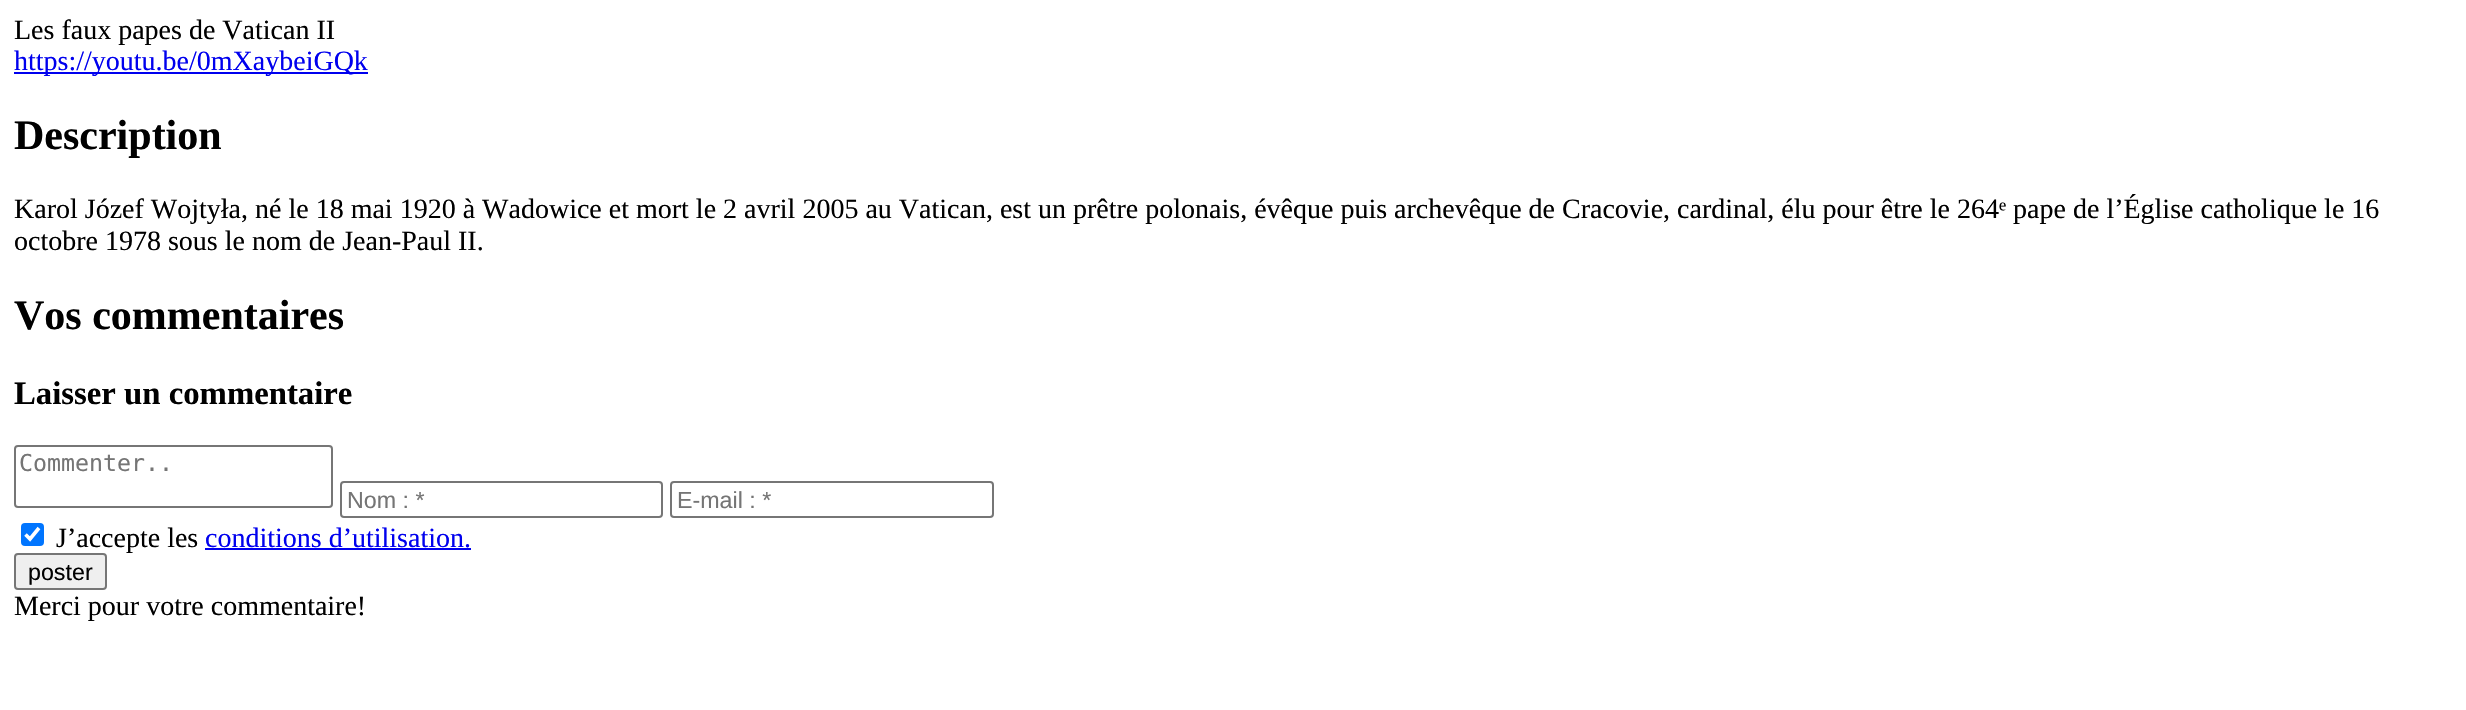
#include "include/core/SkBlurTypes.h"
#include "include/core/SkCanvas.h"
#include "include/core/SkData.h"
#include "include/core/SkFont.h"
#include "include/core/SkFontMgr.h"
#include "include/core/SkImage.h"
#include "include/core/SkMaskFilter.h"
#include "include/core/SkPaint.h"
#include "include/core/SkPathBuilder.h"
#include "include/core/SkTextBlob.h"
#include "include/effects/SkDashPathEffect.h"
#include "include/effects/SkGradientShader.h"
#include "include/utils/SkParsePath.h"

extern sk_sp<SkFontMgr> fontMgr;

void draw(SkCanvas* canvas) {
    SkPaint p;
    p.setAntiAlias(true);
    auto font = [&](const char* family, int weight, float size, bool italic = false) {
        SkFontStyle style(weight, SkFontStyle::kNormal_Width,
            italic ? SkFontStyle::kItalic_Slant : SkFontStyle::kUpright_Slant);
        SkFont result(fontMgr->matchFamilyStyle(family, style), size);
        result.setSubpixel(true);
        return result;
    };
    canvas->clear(0xFFFFFFFF);
    auto font1 = font("Liberation Serif", 400, 28);
    p.setColor(0xFF000000);
    canvas->drawString("Les faux papes de Vatican II", 14, 39, font1, p);
    p.setColor(0xFF0000EE);
    canvas->drawRect(SkRect::MakeLTRB(14, 72, 368, 74), p);
    canvas->drawString("https://youtu.be/0mXaybeiGQk", 14, 70, font1, p);
    auto font2 = font("Liberation Serif", 700, 42);
    p.setColor(0xFF000000);
    canvas->drawString("Description", 14, 149, font2, p);
    canvas->drawString("Karol Józef Wojtyła, né le 18 mai 1920 à Wadowice et mort le 2 avril 2005 au Vatican, est un prêtre polonais, évêque puis archevêque de Cracovie, cardinal, élu pour être le 264ᵉ pape de l’Église catholique le 16", 14, 218, font1, p);
    canvas->drawString("octobre 1978 sous le nom de Jean-Paul II.", 14, 250, font1, p);
    canvas->drawString("Vos commentaires", 14, 329, font2, p);
    auto font3 = font("Liberation Serif", 700, 32.75f);
    canvas->drawString("Laisser un commentaire", 14, 404, font3, p);
    p.setStyle(SkPaint::kStroke_Style);
    p.setStrokeWidth(2);
    p.setColor(0xFF767676);
    canvas->drawRoundRect(SkRect::MakeLTRB(15, 446, 332, 507), 3, 3, p);
    auto font4 = font("DejaVu Sans Mono", 400, 23.25f);
    p.setStyle(SkPaint::kFill_Style);
    p.setColor(0xFF757575);
    canvas->drawString("Commenter..", 19, 471, font4, p);
    p.setStyle(SkPaint::kStroke_Style);
    p.setColor(0xFF767676);
    canvas->drawRoundRect(SkRect::MakeLTRB(341, 482, 662, 517), 3, 3, p);
    auto font5 = font("Liberation Sans", 400, 23.25f);
    p.setStyle(SkPaint::kFill_Style);
    p.setColor(0xFF757575);
    canvas->drawString("Nom : *", 347, 508, font5, p);
    p.setStyle(SkPaint::kStroke_Style);
    p.setColor(0xFF767676);
    canvas->drawRoundRect(SkRect::MakeLTRB(671, 482, 993, 517), 3, 3, p);
    p.setStyle(SkPaint::kFill_Style);
    p.setColor(0xFF757575);
    canvas->drawString("E-mail : *", 677, 508, font5, p);
    p.setColor(0xFF0075FF);
    canvas->drawRoundRect(SkRect::MakeLTRB(21, 523, 44, 546), 4, 4, p);
    p.setStyle(SkPaint::kStroke_Style);
    p.setStrokeWidth(3.6f);
    p.setColor(0xFFFFFFFF);
    canvas->drawPath(SkPathBuilder().moveTo(25.5f, 534.5f).lineTo(30, 539).lineTo(39, 528).detach(), p);
    p.setStyle(SkPaint::kFill_Style);
    p.setColor(0xFF000000);
    canvas->drawString("J’accepte les", 56, 547, font1, p);
    p.setColor(0xFF0000EE);
    canvas->drawString("conditions d’utilisation.", 205, 547, font1, p);
    canvas->drawRect(SkRect::MakeLTRB(205, 548, 471, 550), p);
    p.setColor(0xFFEFEFEF);
    canvas->drawRoundRect(SkRect::MakeLTRB(15, 554, 106, 589), 3, 3, p);
    p.setStyle(SkPaint::kStroke_Style);
    p.setStrokeWidth(2);
    p.setColor(0xFF767676);
    canvas->drawRoundRect(SkRect::MakeLTRB(15, 554, 106, 589), 3, 3, p);
    p.setStyle(SkPaint::kFill_Style);
    p.setColor(0xFF000000);
    canvas->drawString("poster", 28, 580, font5, p);
    canvas->drawString("Merci pour votre commentaire!", 14, 615, font1, p);
}
